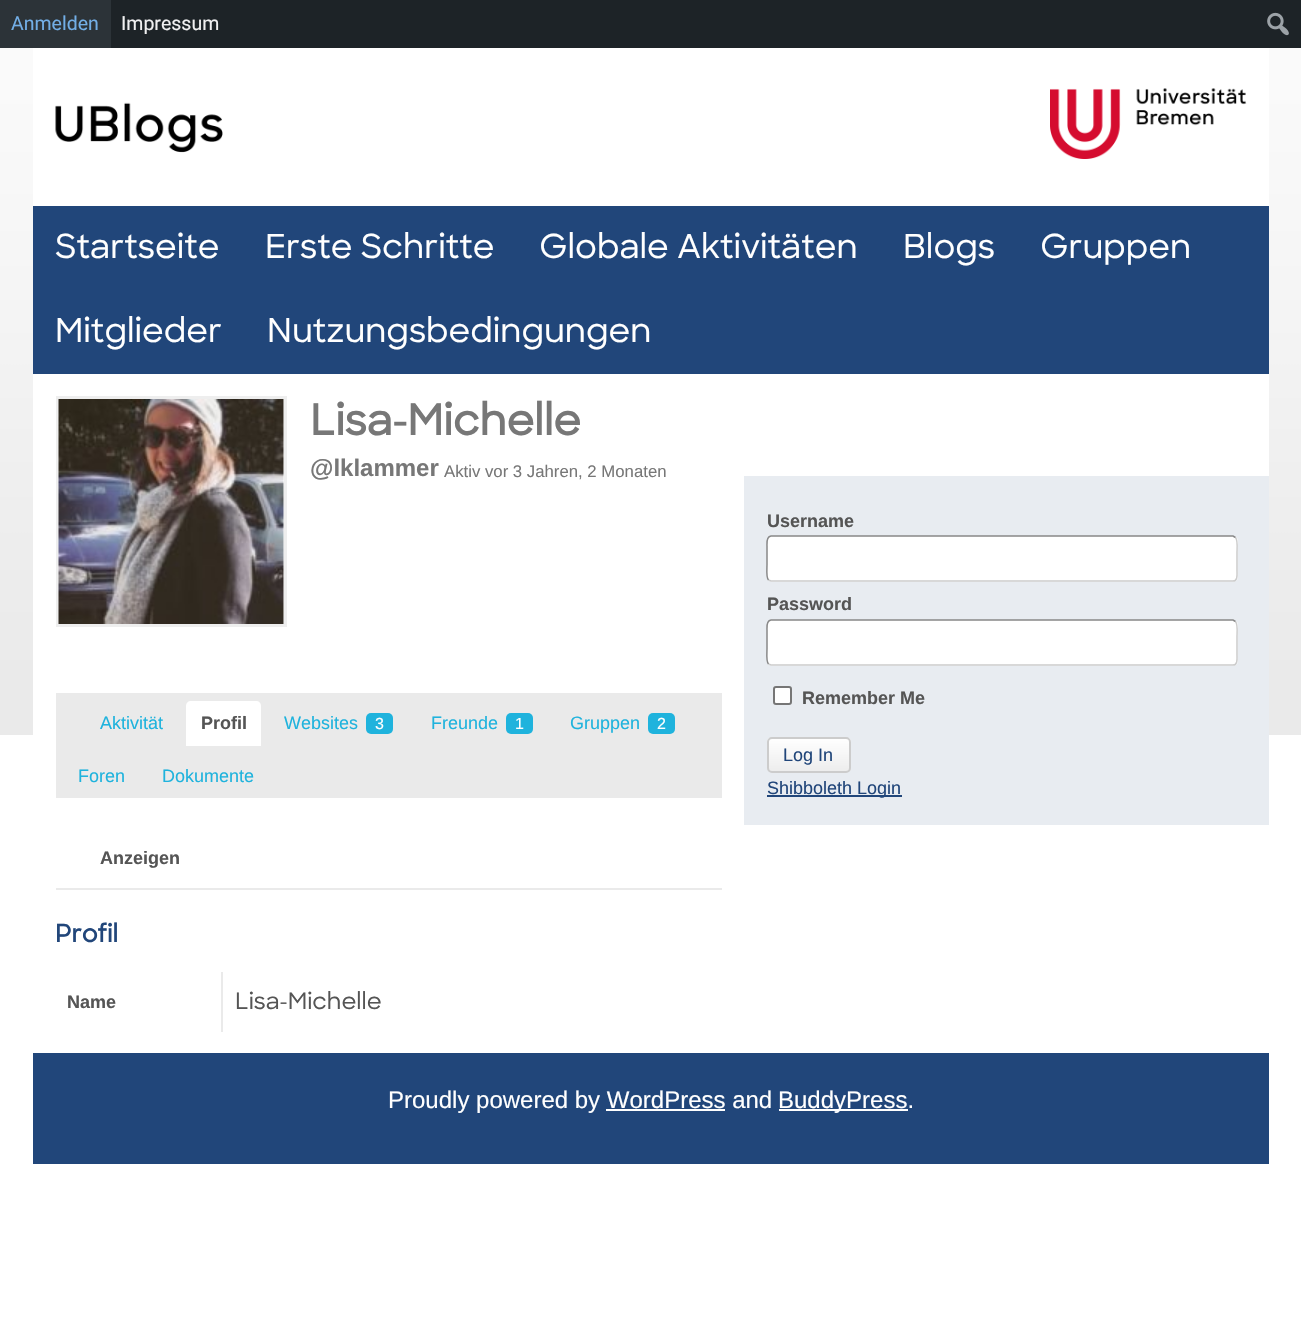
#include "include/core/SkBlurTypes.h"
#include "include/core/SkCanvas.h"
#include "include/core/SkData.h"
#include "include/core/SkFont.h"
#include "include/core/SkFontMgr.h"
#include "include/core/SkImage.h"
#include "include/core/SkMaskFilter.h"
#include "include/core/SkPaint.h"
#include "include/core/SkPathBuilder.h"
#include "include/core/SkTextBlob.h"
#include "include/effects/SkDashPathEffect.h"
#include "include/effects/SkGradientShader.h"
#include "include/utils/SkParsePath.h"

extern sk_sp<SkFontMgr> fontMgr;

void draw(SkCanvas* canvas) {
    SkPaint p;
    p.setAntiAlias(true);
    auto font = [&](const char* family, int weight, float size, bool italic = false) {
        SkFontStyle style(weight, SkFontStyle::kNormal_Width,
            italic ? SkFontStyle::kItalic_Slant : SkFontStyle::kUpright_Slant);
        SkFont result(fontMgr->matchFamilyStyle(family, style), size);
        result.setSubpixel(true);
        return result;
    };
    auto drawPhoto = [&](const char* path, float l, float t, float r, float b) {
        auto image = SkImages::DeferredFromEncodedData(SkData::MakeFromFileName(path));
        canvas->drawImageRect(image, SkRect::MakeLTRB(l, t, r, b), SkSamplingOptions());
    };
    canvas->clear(0xFFFFFFFF);
    drawPhoto("media/1.png", 0, 48, 1301, 735);
    p.setColor(0xFF1D2327);
    canvas->drawRect(SkRect::MakeLTRB(111, 0, 1301, 48), p);
    p.setColor(0xFF2C3338);
    canvas->drawRect(SkRect::MakeLTRB(0, 0, 111, 48), p);
    auto font1 = font("Roboto", 400, 19.5f);
    p.setColor(0xFF72AEE6);
    canvas->drawString("Anmelden", 11, 30, font1, p);
    p.setColor(0xFFF0F0F1);
    canvas->drawString("Impressum", 121, 30, font1, p);
    drawPhoto("media/2.png", 1267, 12, 1289, 36);
    p.setColor(0xFFFFFFFF);
    canvas->drawRect(SkRect::MakeLTRB(33, 48, 1269, 206), p);
    p.setColor(0xFF21467A);
    canvas->drawRect(SkRect::MakeLTRB(33, 206, 1269, 374), p);
    auto font2 = font("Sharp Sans", 500, 33);
    p.setColor(0xFFFFFFFF);
    {
        const struct { const char* s; float x, y; } items[] = {
            {"Startseite", 55, 258},
            {"Erste Schritte", 265, 258},
            {"Globale Aktivitäten", 539, 258},
            {"Blogs", 903, 258},
            {"Gruppen", 1040, 258},
            {"Mitglieder", 55, 342},
            {"Nutzungsbedingungen", 267, 342},
        };
        for (auto [s, x, y] : items) {
            canvas->drawString(s, x, y, font2, p);
        }
    }
    canvas->drawRect(SkRect::MakeLTRB(33, 374, 1269, 735), p);
    p.setStyle(SkPaint::kStroke_Style);
    p.setStrokeWidth(3);
    p.setColor(0xFFEEEEEE);
    canvas->drawRect(SkRect::MakeLTRB(57.5f, 397.5f, 285.5f, 625.5f), p);
    drawPhoto("media/3.png", 58, 399, 284, 624);
    auto font3 = font("Sharp Sans", 700, 42);
    p.setStyle(SkPaint::kFill_Style);
    p.setColor(0xFF777777);
    canvas->drawString("Lisa-Michelle", 310, 435, font3, p);
    auto font4 = font("Liberation Sans", 700, 24);
    canvas->drawString("@lklammer", 310, 476, font4, p);
    auto font5 = font("Liberation Sans", 400, 16.75f);
    canvas->drawString("Aktiv vor 3 Jahren, 2 Monaten", 444, 477, font5, p);
    p.setColor(0xFFEAEAEA);
    canvas->drawRect(SkRect::MakeLTRB(56, 693, 722, 798), p);
    auto font6 = font("Liberation Sans", 400, 18);
    p.setColor(0xFF1FB3DD);
    canvas->drawString("Aktivität", 100, 729, font6, p);
    p.setColor(0xFFFFFFFF);
    canvas->drawPath(SkPathBuilder().moveTo(191, 701).lineTo(256, 701).cubicTo(259, 701, 261, 703, 261, 706).lineTo(261, 746).lineTo(186, 746).lineTo(186, 706).cubicTo(186, 703, 188, 701, 191, 701).close().detach(), p);
    auto font7 = font("Liberation Sans", 700, 18);
    p.setColor(0xFF555555);
    canvas->drawString("Profil", 201, 729, font7, p);
    p.setColor(0xFF1FB3DD);
    canvas->drawString("Websites", 284, 729, font6, p);
    canvas->drawRoundRect(SkRect::MakeLTRB(366, 713, 393, 734), 5, 5, p);
    auto font8 = font("Liberation Sans", 400, 16);
    p.setColor(0xFFFFFFFF);
    canvas->drawString("3", 375, 729, font8, p);
    p.setColor(0xFF1FB3DD);
    canvas->drawString("Freunde", 431, 729, font6, p);
    canvas->drawRoundRect(SkRect::MakeLTRB(506, 713, 533, 734), 5, 5, p);
    p.setColor(0xFFFFFFFF);
    canvas->drawString("1", 515, 729, font8, p);
    p.setColor(0xFF1FB3DD);
    canvas->drawString("Gruppen", 570, 729, font6, p);
    canvas->drawRoundRect(SkRect::MakeLTRB(648, 713, 675, 734), 5, 5, p);
    p.setColor(0xFFFFFFFF);
    canvas->drawString("2", 657, 729, font8, p);
    p.setColor(0xFF1FB3DD);
    canvas->drawString("Foren", 78, 782, font6, p);
    canvas->drawString("Dokumente", 162, 782, font6, p);
    p.setColor(0xFFEAEAEA);
    canvas->drawRect(SkRect::MakeLTRB(56, 888, 722, 890), p);
    p.setColor(0xFF555555);
    canvas->drawString("Anzeigen", 100, 864, font7, p);
    auto font9 = font("Sharp Sans", 700, 24);
    p.setColor(0xFF21467A);
    canvas->drawString("Profil", 55, 942, font9, p);
    p.setColor(0xFFEAEAEA);
    canvas->drawRect(SkRect::MakeLTRB(221, 972, 223, 1032), p);
    p.setColor(0xFF555555);
    canvas->drawString("Name", 67, 1008, font7, p);
    auto font10 = font("Sharp Sans", 500, 22.75f);
    canvas->drawString("Lisa-Michelle", 235, 1009, font10, p);
    p.setColor(0xFFE8ECF1);
    canvas->drawRect(SkRect::MakeLTRB(744, 476, 1269, 825), p);
    p.setColor(0xFF555555);
    canvas->drawString("Username", 767, 527, font7, p);
    p.setColor(0xFFFFFFFF);
    canvas->drawRoundRect(SkRect::MakeLTRB(767, 536, 1238, 582), 5, 5, p);
    p.setStyle(SkPaint::kStroke_Style);
    p.setStrokeWidth(1.5f);
    p.setColor(0xFFCCCCCC);
    canvas->drawPath(SkPathBuilder().moveTo(1235.5f, 537.5f).cubicTo(1238, 540, 1237, 549.5f, 1237, 552.5f).lineTo(1237, 571).cubicTo(1237, 574, 1238, 581, 1233, 581).lineTo(771, 581).lineTo(768.5f, 580).detach(), p);
    p.setColor(0xFF888888);
    canvas->drawPath(SkPathBuilder().moveTo(768.5f, 580).cubicTo(766, 577.5f, 767, 568, 767, 565).lineTo(767, 546).cubicTo(767, 543.5f, 766, 536.5f, 771, 536).lineTo(1233, 536).lineTo(1235.5f, 537.5f).detach(), p);
    p.setStyle(SkPaint::kFill_Style);
    p.setColor(0xFF555555);
    canvas->drawString("Password", 767, 610, font7, p);
    p.setColor(0xFFFFFFFF);
    canvas->drawRoundRect(SkRect::MakeLTRB(767, 620, 1238, 666), 5, 5, p);
    p.setStyle(SkPaint::kStroke_Style);
    p.setColor(0xFFCCCCCC);
    canvas->drawPath(SkPathBuilder().moveTo(1235.5f, 621.5f).cubicTo(1238, 624, 1237, 633.5f, 1237, 636.5f).lineTo(1237, 655).cubicTo(1237, 658, 1238, 665, 1233, 665).lineTo(771, 665).lineTo(768.5f, 664).detach(), p);
    p.setColor(0xFF888888);
    canvas->drawPath(SkPathBuilder().moveTo(768.5f, 664).cubicTo(766, 661.5f, 767, 652, 767, 649).lineTo(767, 630).cubicTo(767, 627.5f, 766, 620.5f, 771, 620).lineTo(1233, 620).lineTo(1235.5f, 621.5f).detach(), p);
    p.setStyle(SkPaint::kFill_Style);
    p.setColor(0xFFFFFFFF);
    canvas->drawRoundRect(SkRect::MakeLTRB(774, 687, 791, 704), 2, 2, p);
    p.setStyle(SkPaint::kStroke_Style);
    p.setStrokeWidth(2);
    p.setColor(0xFF767676);
    canvas->drawRoundRect(SkRect::MakeLTRB(774, 687, 791, 704), 2, 2, p);
    p.setStyle(SkPaint::kFill_Style);
    p.setColor(0xFF555555);
    canvas->drawString("Remember Me", 802, 704, font7, p);
    canvas->save();
    canvas->clipPath(SkPathBuilder().moveTo(772, 737).lineTo(846, 737).cubicTo(849, 737, 851, 739, 851, 742).lineTo(851, 768).cubicTo(851, 771, 849, 773, 846, 773).lineTo(772, 773).cubicTo(769, 773, 767, 771, 767, 768).lineTo(767, 742).cubicTo(767, 739, 769, 737, 772, 737).close().detach(), true);
    {
        const SkColor colors[] = {0xFFFFFFFF, 0xFFEDEDED};
        const float stops[] = {0, 1};
        const SkPoint ends[] = {{809, 738}, {809, 771}};
        p.setShader(SkGradientShader::MakeLinear(ends, colors, stops, 2, SkTileMode::kClamp));
        p.setAlpha(255);
    }
    canvas->drawRect(SkRect::MakeLTRB(767, 738, 851, 771), p);
    canvas->restore();
    p.setStyle(SkPaint::kStroke_Style);
    p.setShader(nullptr);
    p.setColor(0xFFCCCCCC);
    canvas->drawRoundRect(SkRect::MakeLTRB(768, 738, 850, 772), 4, 4, p);
    p.setStyle(SkPaint::kFill_Style);
    p.setColor(0xFF21467A);
    canvas->drawString("Log In", 783, 761, font6, p);
    canvas->drawRect(SkRect::MakeLTRB(767, 795, 902, 797), p);
    canvas->drawString("Shibboleth Login", 767, 794, font6, p);
    canvas->drawRect(SkRect::MakeLTRB(33, 1053, 1269, 1164), p);
    drawPhoto("media/4.png", 55, 102, 223, 153);
    drawPhoto("media/5.png", 1050, 88, 1247, 159);
    auto font11 = font("Liberation Sans", 400, 24);
    p.setColor(0xFFFFFFFF);
    canvas->drawString("Proudly powered by WordPress and", 388, 1108, font11, p);
    canvas->drawRect(SkRect::MakeLTRB(779, 1109, 908, 1111), p);
    canvas->drawString("BuddyPress.", 778, 1108, font11, p);
    canvas->drawRect(SkRect::MakeLTRB(606, 1109, 725, 1111), p);
}
